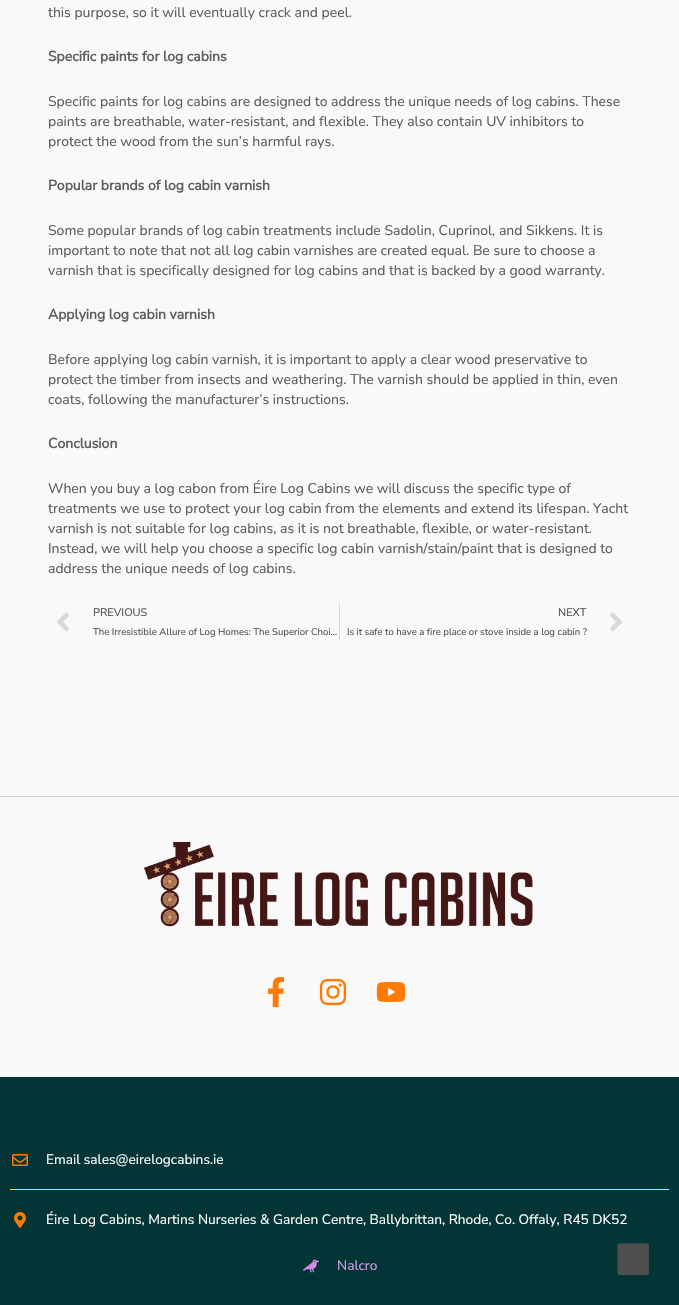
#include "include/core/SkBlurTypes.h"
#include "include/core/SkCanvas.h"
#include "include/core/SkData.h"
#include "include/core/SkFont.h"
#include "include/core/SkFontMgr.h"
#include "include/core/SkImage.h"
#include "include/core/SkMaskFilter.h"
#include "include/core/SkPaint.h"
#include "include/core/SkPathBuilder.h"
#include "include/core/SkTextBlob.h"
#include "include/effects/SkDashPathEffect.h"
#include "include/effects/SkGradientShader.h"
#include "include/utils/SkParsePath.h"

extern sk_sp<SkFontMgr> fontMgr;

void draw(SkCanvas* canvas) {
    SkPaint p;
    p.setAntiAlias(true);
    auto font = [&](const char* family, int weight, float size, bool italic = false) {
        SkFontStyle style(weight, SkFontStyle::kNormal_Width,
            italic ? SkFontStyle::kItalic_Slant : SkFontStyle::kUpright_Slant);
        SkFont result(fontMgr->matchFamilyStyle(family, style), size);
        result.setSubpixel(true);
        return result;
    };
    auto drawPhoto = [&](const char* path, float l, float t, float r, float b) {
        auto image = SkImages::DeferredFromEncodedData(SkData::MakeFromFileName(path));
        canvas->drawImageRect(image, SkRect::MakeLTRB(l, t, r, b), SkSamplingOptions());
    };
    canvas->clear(0xFFF9F9F9);
    auto font1 = font("Nunito Sans", 200, 14);
    p.setColor(0xFF5F5B5B);
    canvas->drawString("this purpose, so it will eventually crack and peel.", 48, 17, font1, p);
    auto font2 = font("Nunito Sans", 700, 14);
    canvas->drawString("Specific paints for log cabins", 48, 61, font2, p);
    {
        const struct { const char* s; float x, y; } items[] = {
            {"Specific paints for log cabins are designed to address the unique needs of log cabins. These", 48, 106},
            {"paints are breathable, water-resistant, and flexible. They also contain UV inhibitors to", 48, 126},
            {"protect the wood from the sun’s harmful rays.", 48, 146},
        };
        for (auto [s, x, y] : items) {
            canvas->drawString(s, x, y, font1, p);
        }
    }
    canvas->drawString("Popular brands of log cabin varnish", 48, 190, font2, p);
    {
        const struct { const char* s; float x, y; } items[] = {
            {"Some popular brands of log cabin treatments include Sadolin, Cuprinol, and Sikkens. It is", 48, 235},
            {"important to note that not all log cabin varnishes are created equal. Be sure to choose a", 48, 255},
            {"varnish that is specifically designed for log cabins and that is backed by a good warranty.", 48, 275},
        };
        for (auto [s, x, y] : items) {
            canvas->drawString(s, x, y, font1, p);
        }
    }
    canvas->drawString("Applying log cabin varnish", 48, 319, font2, p);
    {
        const struct { const char* s; float x, y; } items[] = {
            {"Before applying log cabin varnish, it is important to apply a clear wood preservative to", 48, 364},
            {"protect the timber from insects and weathering. The varnish should be applied in thin, even", 48, 384},
            {"coats, following the manufacturer’s instructions.", 48, 404},
        };
        for (auto [s, x, y] : items) {
            canvas->drawString(s, x, y, font1, p);
        }
    }
    canvas->drawString("Conclusion", 48, 448, font2, p);
    {
        const struct { const char* s; float x, y; } items[] = {
            {"When you buy a log cabon from Éire Log Cabins we will discuss the specific type of", 48, 493},
            {"treatments we use to protect your log cabin from the elements and extend its lifespan. Yacht", 48, 513},
            {"varnish is not suitable for log cabins, as it is not breathable, flexible, or water-resistant.", 48, 533},
            {"Instead, we will help you choose a specific log cabin varnish/stain/paint that is designed to", 48, 553},
            {"address the unique needs of log cabins.", 48, 573},
        };
        for (auto [s, x, y] : items) {
            canvas->drawString(s, x, y, font1, p);
        }
    }
    drawPhoto("media/1.png", 57, 612, 69, 632);
    auto font3 = font("Nunito Sans", 200, 11);
    p.setColor(0xFF4E4E4E);
    canvas->drawString("PREVIOUS", 93, 616, font3, p);
    auto font4 = font("Nunito Sans", 200, 9.6f);
    canvas->drawString("The Irresistible Allure of Log Homes: The Superior Choi…", 93, 635, font4, p);
    p.setColor(0xFFD5D8DC);
    canvas->drawRect(SkRect::MakeLTRB(339, 603, 340, 641), p);
    p.setColor(0xFF4E4E4E);
    canvas->drawString("NEXT", 558, 616, font3, p);
    canvas->drawString("Is it safe to have a fire place or stove inside a log cabin ?", 347, 635, font4, p);
    drawPhoto("media/2.png", 610, 612, 622, 632);
    p.setColor(0xFFC8D2D2);
    canvas->drawRect(SkRect::MakeLTRB(0, 796, 679, 797), p);
    drawPhoto("media/3.png", 143, 841, 533, 927);
    drawPhoto("media/4.png", 267, 977, 285, 1007);
    drawPhoto("media/5.png", 319, 978, 347, 1006);
    drawPhoto("media/6.png", 376, 982, 406, 1002);
    p.setColor(0xFF033537);
    canvas->drawRect(SkRect::MakeLTRB(0, 1077, 679, 1305), p);
    drawPhoto("media/7.png", 12, 1154, 28, 1166);
    auto font5 = font("Nunito Sans", 200, 13.7f);
    p.setColor(0xFFFFFFFF);
    canvas->drawString("Email sales@eirelogcabins.ie", 46, 1164, font5, p);
    p.setColor(0xFFFFD664);
    canvas->drawRect(SkRect::MakeLTRB(10, 1189, 669, 1190), p);
    drawPhoto("media/8.png", 14, 1212, 26, 1228);
    p.setColor(0xFFFFFFFF);
    canvas->drawString("Éire Log Cabins, Martins Nurseries & Garden Centre, Ballybrittan, Rhode, Co. Offaly, R45 DK52", 46, 1224, font5, p);
    drawPhoto("media/9.png", 303, 1259, 319, 1273);
    p.setColor(0xFFD3A1E3);
    canvas->drawString("Nalcro", 337, 1270, font5, p);
    p.setColor(0xFF4E4E4E);
    canvas->drawPath(SkPathBuilder().moveTo(647, 1275).lineTo(619.5f, 1275).cubicTo(618.5f, 1275, 617.5f, 1274, 617.5f, 1273).lineTo(617.5f, 1245.5f).cubicTo(617.5f, 1244.5f, 618.5f, 1243.5f, 619.5f, 1243.5f).lineTo(647, 1243.5f).cubicTo(648, 1243.5f, 649, 1244.5f, 649, 1245.5f).lineTo(649, 1273).cubicTo(649, 1274, 648, 1275, 647, 1275).close().detach(), p);
}
